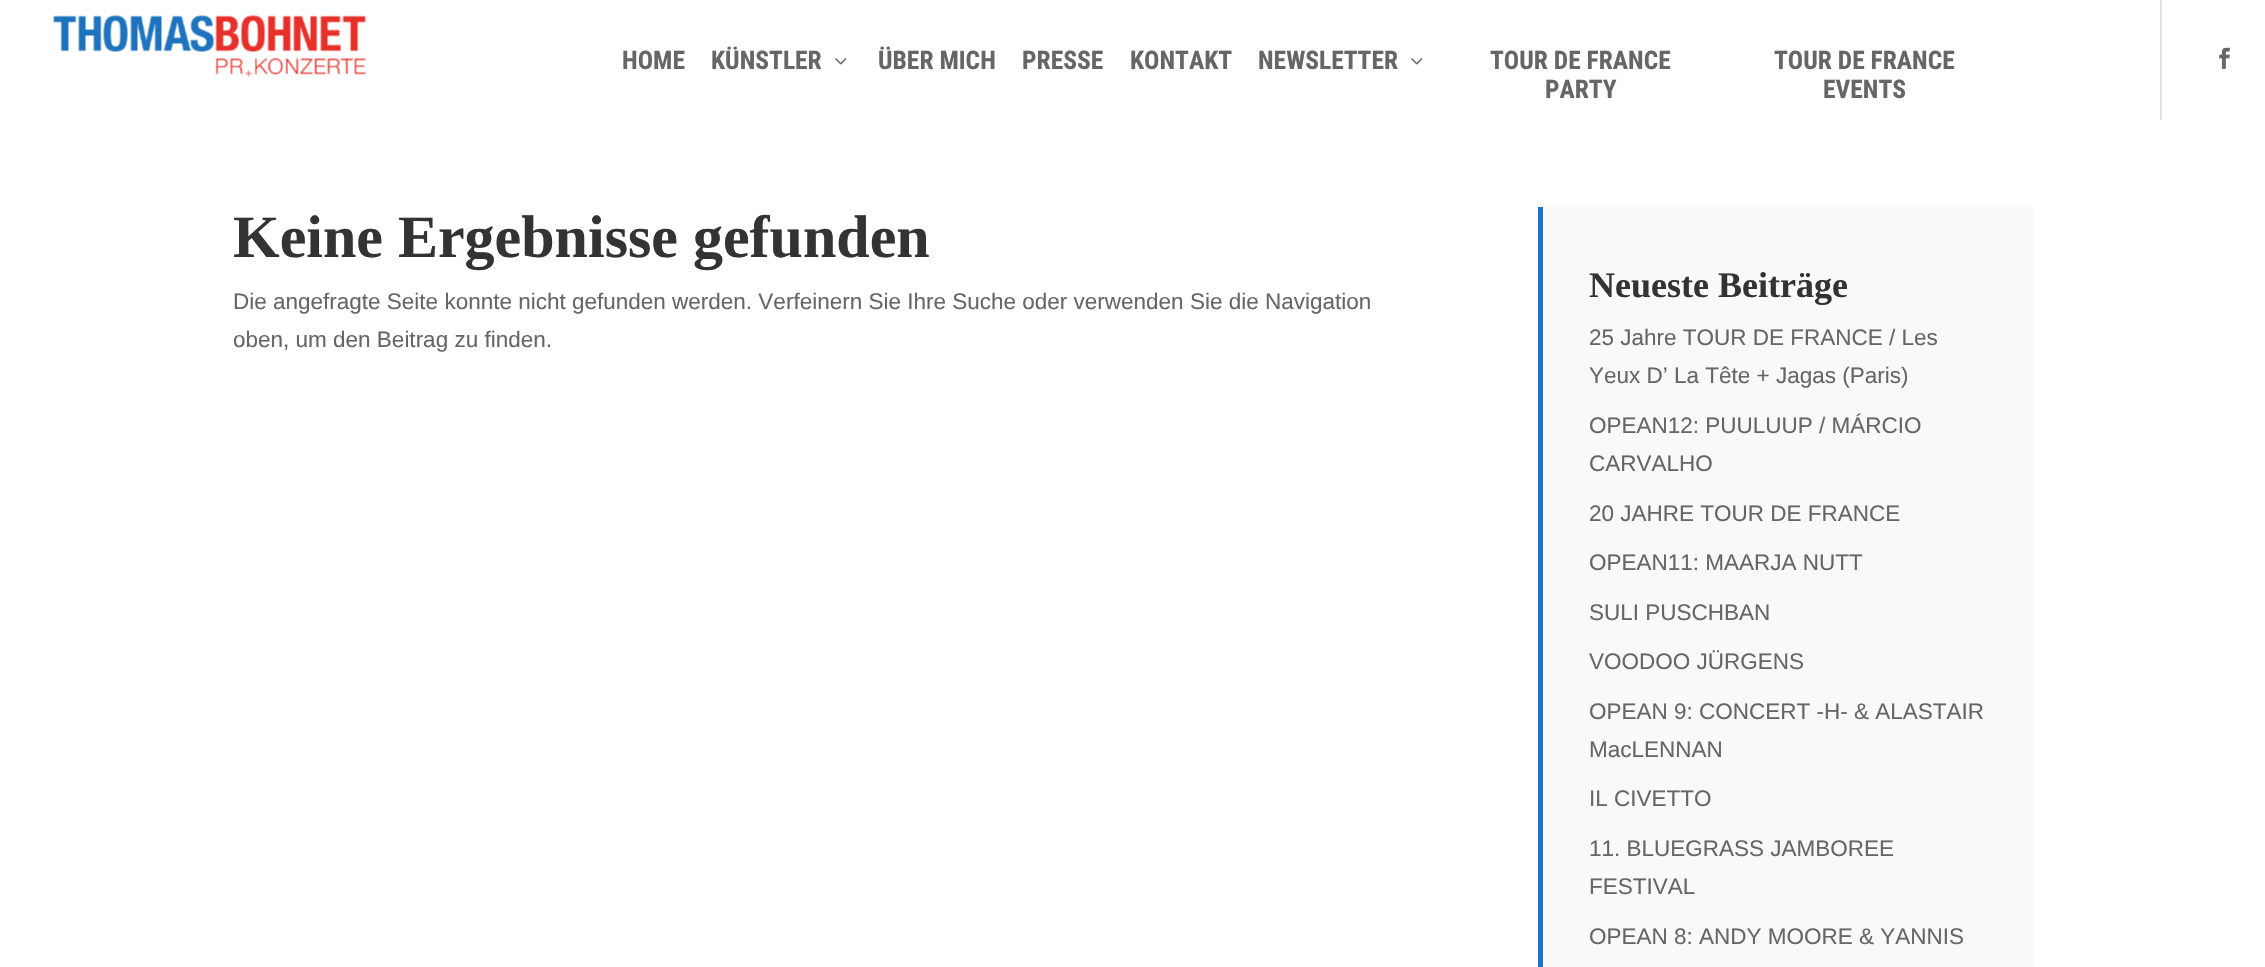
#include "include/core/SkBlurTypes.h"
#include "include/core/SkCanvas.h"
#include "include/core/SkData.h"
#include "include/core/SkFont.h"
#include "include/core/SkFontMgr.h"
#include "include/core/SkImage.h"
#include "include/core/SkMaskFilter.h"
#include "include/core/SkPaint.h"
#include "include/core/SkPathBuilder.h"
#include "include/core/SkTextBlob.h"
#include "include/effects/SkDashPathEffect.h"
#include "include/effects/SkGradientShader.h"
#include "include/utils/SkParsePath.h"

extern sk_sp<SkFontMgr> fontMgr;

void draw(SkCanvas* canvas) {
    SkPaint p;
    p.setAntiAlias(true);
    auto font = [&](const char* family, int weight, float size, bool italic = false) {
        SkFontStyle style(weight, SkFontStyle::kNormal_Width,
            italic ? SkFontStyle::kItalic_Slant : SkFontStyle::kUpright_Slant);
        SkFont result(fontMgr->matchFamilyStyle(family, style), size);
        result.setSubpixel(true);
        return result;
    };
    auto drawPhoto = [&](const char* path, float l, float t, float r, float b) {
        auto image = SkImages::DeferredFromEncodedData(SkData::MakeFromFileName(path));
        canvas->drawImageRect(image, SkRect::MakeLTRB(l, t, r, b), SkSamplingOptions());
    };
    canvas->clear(0xFFFFFFFF);
    drawPhoto("media/1.png", 53, 15, 366, 77);
    auto font1 = font("Roboto Condensed", 700, 25.5f);
    p.setColor(0xFF666666);
    canvas->drawString("HOME", 622, 69, font1, p);
    canvas->drawString("KÜNSTLER", 711, 69, font1, p);
    drawPhoto("media/2.png", 835, 58, 847, 65);
    {
        const struct { const char* s; float x, y; } items[] = {
            {"ÜBER MICH", 878, 69},
            {"PRESSE", 1022, 69},
            {"KONTAKT", 1130, 69},
            {"NEWSLETTER", 1258, 69},
        };
        for (auto [s, x, y] : items) {
            canvas->drawString(s, x, y, font1, p);
        }
    }
    drawPhoto("media/2.png", 1411, 58, 1423, 65);
    {
        const struct { const char* s; float x, y; } items[] = {
            {"TOUR DE FRANCE", 1490, 69},
            {"PARTY", 1545, 98},
            {"TOUR DE FRANCE", 1774, 69},
            {"EVENTS", 1823, 98},
        };
        for (auto [s, x, y] : items) {
            canvas->drawString(s, x, y, font1, p);
        }
    }
    p.setColor(0xFFE1E1E1);
    canvas->drawRect(SkRect::MakeLTRB(2160, 0, 2162, 120), p);
    drawPhoto("media/3.png", 2219, 47, 2230, 69);
    auto font2 = font("Liberation Serif", 700, 60);
    p.setColor(0xFF333333);
    canvas->drawString("Keine Ergebnisse gefunden", 233, 257, font2, p);
    auto font3 = font("Liberation Sans", 400, 22.5f);
    p.setColor(0xFF666666);
    canvas->drawString("Die angefragte Seite konnte nicht gefunden werden. Verfeinern Sie Ihre Suche oder verwenden Sie die Navigation", 233, 309, font3, p);
    canvas->drawString("oben, um den Beitrag zu finden.", 233, 347, font3, p);
    p.setColor(0xFFF9F9F9);
    canvas->drawRect(SkRect::MakeLTRB(1543, 207, 2033, 967), p);
    p.setColor(0xFF1976D2);
    canvas->drawRect(SkRect::MakeLTRB(1538, 207, 1543, 967), p);
    auto font4 = font("Liberation Serif", 700, 36);
    p.setColor(0xFF333333);
    canvas->drawString("Neueste Beiträge", 1589, 297, font4, p);
    p.setColor(0xFF666666);
    {
        const struct { const char* s; float x, y; } items[] = {
            {"25 Jahre TOUR DE FRANCE / Les", 1589, 345},
            {"Yeux D’ La Tête + Jagas (Paris)", 1589, 383},
            {"OPEAN12: PUULUUP / MÁRCIO", 1589, 433},
            {"CARVALHO", 1589, 471},
            {"20 JAHRE TOUR DE FRANCE", 1589, 521},
            {"OPEAN11: MAARJA NUTT", 1589, 570},
            {"SULI PUSCHBAN", 1589, 620},
            {"VOODOO JÜRGENS", 1589, 669},
            {"OPEAN 9: CONCERT -H- & ALASTAIR", 1589, 719},
            {"MacLENNAN", 1589, 757},
            {"IL CIVETTO", 1589, 806},
            {"11. BLUEGRASS JAMBOREE", 1589, 856},
            {"FESTIVAL", 1589, 894},
            {"OPEAN 8: ANDY MOORE & YANNIS", 1589, 944},
        };
        for (auto [s, x, y] : items) {
            canvas->drawString(s, x, y, font3, p);
        }
    }
}
